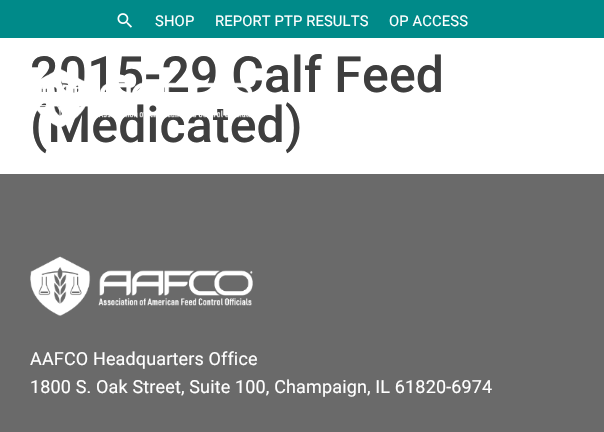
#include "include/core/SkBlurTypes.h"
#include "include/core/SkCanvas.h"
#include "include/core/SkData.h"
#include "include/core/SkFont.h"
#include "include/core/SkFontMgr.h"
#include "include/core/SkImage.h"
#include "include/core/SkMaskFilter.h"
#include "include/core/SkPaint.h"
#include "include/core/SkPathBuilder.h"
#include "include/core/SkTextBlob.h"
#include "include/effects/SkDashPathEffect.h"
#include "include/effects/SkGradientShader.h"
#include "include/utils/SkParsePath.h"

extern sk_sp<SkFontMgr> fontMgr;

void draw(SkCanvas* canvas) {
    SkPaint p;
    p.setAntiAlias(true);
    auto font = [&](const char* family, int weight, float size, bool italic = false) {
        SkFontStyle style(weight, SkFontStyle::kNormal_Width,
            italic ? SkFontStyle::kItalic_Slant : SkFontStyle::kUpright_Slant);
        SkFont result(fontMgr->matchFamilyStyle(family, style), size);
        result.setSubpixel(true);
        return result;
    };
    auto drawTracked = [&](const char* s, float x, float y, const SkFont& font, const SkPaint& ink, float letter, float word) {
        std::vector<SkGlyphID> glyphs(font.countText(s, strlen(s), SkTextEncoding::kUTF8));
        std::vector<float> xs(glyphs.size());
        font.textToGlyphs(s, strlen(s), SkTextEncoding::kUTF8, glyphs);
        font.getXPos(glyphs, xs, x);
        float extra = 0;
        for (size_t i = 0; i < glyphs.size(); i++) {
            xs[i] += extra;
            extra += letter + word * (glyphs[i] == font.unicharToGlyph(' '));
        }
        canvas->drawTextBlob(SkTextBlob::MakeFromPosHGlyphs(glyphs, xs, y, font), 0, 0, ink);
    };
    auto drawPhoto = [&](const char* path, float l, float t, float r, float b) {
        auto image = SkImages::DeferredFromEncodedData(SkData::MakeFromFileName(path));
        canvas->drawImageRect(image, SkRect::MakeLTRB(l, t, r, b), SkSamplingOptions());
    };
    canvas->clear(0xFFFFFFFF);
    p.setColor(0xFF008A89);
    canvas->drawRect(SkRect::MakeLTRB(0, 0, 604, 38), p);
    drawPhoto("media/1.png", 117, 13, 132, 28);
    auto font1 = font("Roboto", 400, 14.75f);
    p.setColor(0xFFFFFFFF);
    {
        const struct { const char* s; float x, y; } items[] = {
            {"SHOP", 155, 26},
            {"REPORT PTP RESULTS", 215, 26},
            {"OP ACCESS", 389, 26},
        };
        for (auto [s, x, y] : items) {
            drawTracked(s, x, y, font1, p, 0.15f, 0);
        }
    }
    auto font2 = font("Roboto", 500, 50);
    p.setColor(0xFF3E3E3E);
    drawTracked("2015-29 Calf Feed", 30, 92, font2, p, 0.15f, 0);
    drawTracked("(Medicated)", 30, 142, font2, p, 0.15f, 0);
    drawPhoto("media/2.png", 32, 69, 253, 128);
    p.setColor(0xFF6A6A6A);
    canvas->drawRect(SkRect::MakeLTRB(0, 174, 604, 432), p);
    drawPhoto("media/3.png", 30, 256, 253, 316);
    auto font3 = font("Roboto", 400, 18);
    p.setColor(0xFFFFFFFF);
    drawTracked("AAFCO Headquarters Office", 30, 365, font3, p, 0.15f, 0);
    drawTracked("1800 S. Oak Street, Suite 100, Champaign, IL 61820-6974", 30, 393, font3, p, 0.15f, 0);
}
